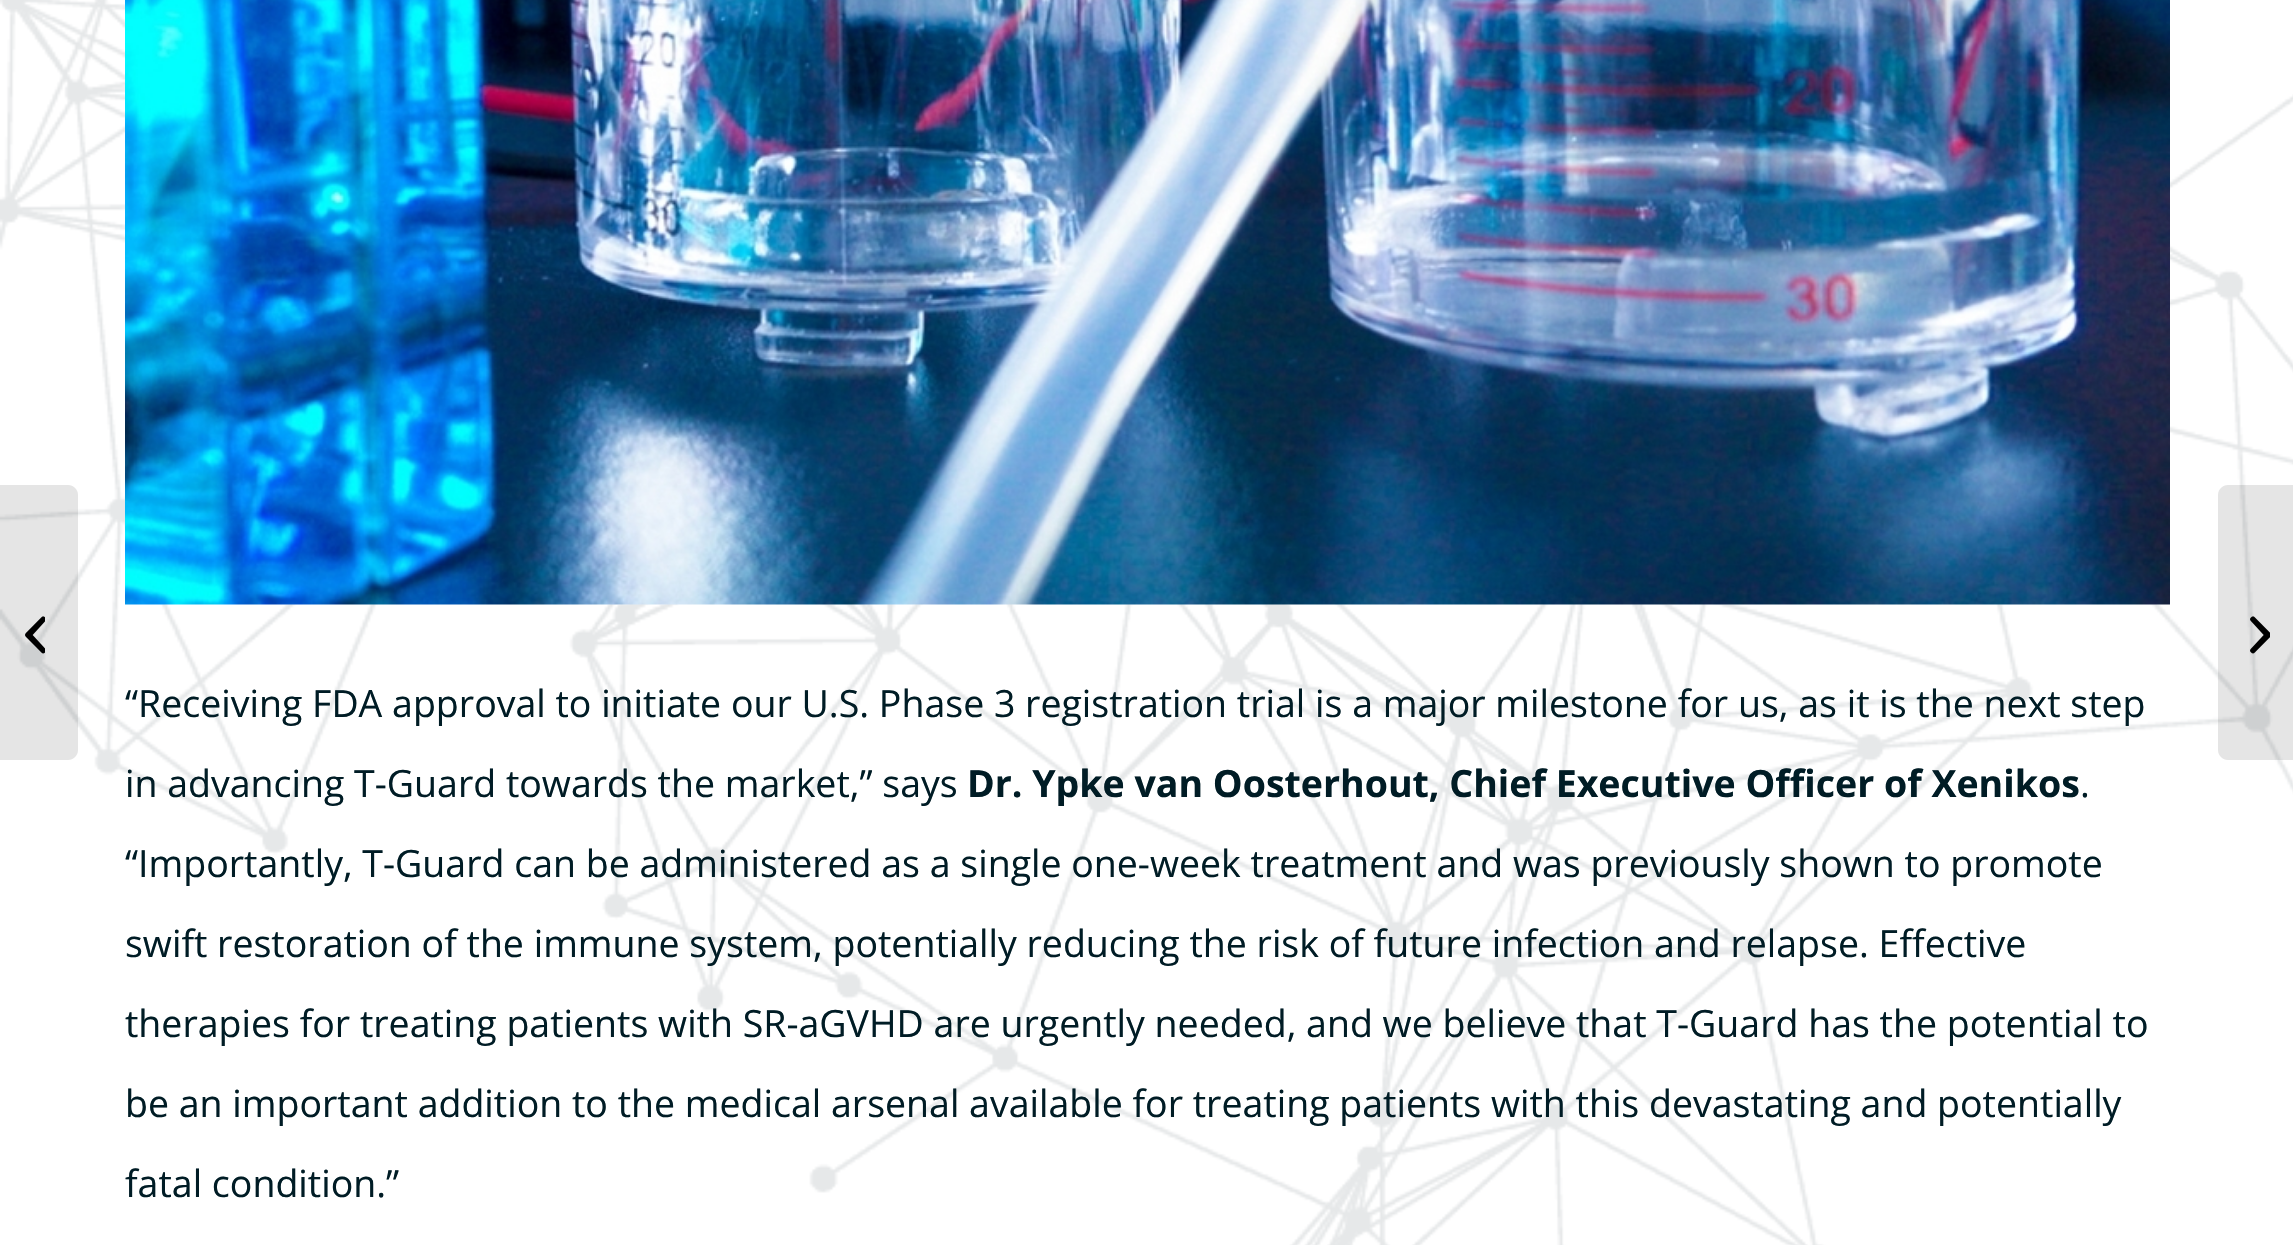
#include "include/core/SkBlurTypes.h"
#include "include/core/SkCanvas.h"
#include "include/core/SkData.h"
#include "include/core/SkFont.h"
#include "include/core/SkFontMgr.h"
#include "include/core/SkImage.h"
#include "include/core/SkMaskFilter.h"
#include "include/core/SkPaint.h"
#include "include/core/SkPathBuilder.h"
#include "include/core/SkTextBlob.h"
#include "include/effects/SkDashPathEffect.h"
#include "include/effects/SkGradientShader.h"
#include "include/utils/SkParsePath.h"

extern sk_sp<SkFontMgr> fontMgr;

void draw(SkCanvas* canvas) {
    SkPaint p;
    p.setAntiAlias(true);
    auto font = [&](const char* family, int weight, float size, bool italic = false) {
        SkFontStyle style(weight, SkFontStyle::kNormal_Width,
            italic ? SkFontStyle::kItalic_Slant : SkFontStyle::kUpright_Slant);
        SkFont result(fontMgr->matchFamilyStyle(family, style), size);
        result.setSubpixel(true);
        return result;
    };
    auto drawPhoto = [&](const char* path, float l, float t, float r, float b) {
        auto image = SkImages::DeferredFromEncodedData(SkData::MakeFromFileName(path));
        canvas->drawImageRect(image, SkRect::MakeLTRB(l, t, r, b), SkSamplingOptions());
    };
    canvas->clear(0xFFFFFFFF);
    drawPhoto("media/3.png", 0, 0, 2293, 1245);
    p.setColor(0x1A000000);
    canvas->drawPath(SkPathBuilder().moveTo(0, 485).lineTo(68, 485).cubicTo(73.5f, 485, 78, 489.5f, 78, 495).lineTo(78, 750).cubicTo(78, 755.5f, 73.5f, 760, 68, 760).lineTo(0, 760).close().detach(), p);
    drawPhoto("media/1.png", 25, 616, 45, 654);
    canvas->drawPath(SkPathBuilder().moveTo(2228, 485).lineTo(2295, 485).lineTo(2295, 760).lineTo(2228, 760).cubicTo(2222.5f, 760, 2218, 755.5f, 2218, 750).lineTo(2218, 495).cubicTo(2218, 489.5f, 2222.5f, 485, 2228, 485).close().detach(), p);
    drawPhoto("media/2.png", 2250, 616, 2270, 654);
    drawPhoto("media/4.png", 125, 0, 2170, 605);
    auto font1 = font("Open Sans", 400, 37.5f);
    p.setColor(0xFF001C25);
    canvas->drawString("“Receiving FDA approval to initiate our U.S. Phase 3 registration trial is a major milestone for us, as it is the next step", 125, 717, font1, p);
    canvas->drawString("in advancing T-Guard towards the market,” says", 125, 797, font1, p);
    auto font2 = font("Open Sans", 700, 37.5f);
    canvas->drawString("Dr. Ypke van Oosterhout, Chief Executive Officer of Xenikos", 967, 797, font2, p);
    {
        const struct { const char* s; float x, y; } items[] = {
            {".", 2080, 797},
            {"“Importantly, T-Guard can be administered as a single one-week treatment and was previously shown to promote", 125, 877},
            {"swift restoration of the immune system, potentially reducing the risk of future infection and relapse. Effective", 125, 957},
            {"therapies for treating patients with SR-aGVHD are urgently needed, and we believe that T-Guard has the potential to", 125, 1037},
            {"be an important addition to the medical arsenal available for treating patients with this devastating and potentially", 125, 1117},
            {"fatal condition.”", 125, 1197},
        };
        for (auto [s, x, y] : items) {
            canvas->drawString(s, x, y, font1, p);
        }
    }
}
